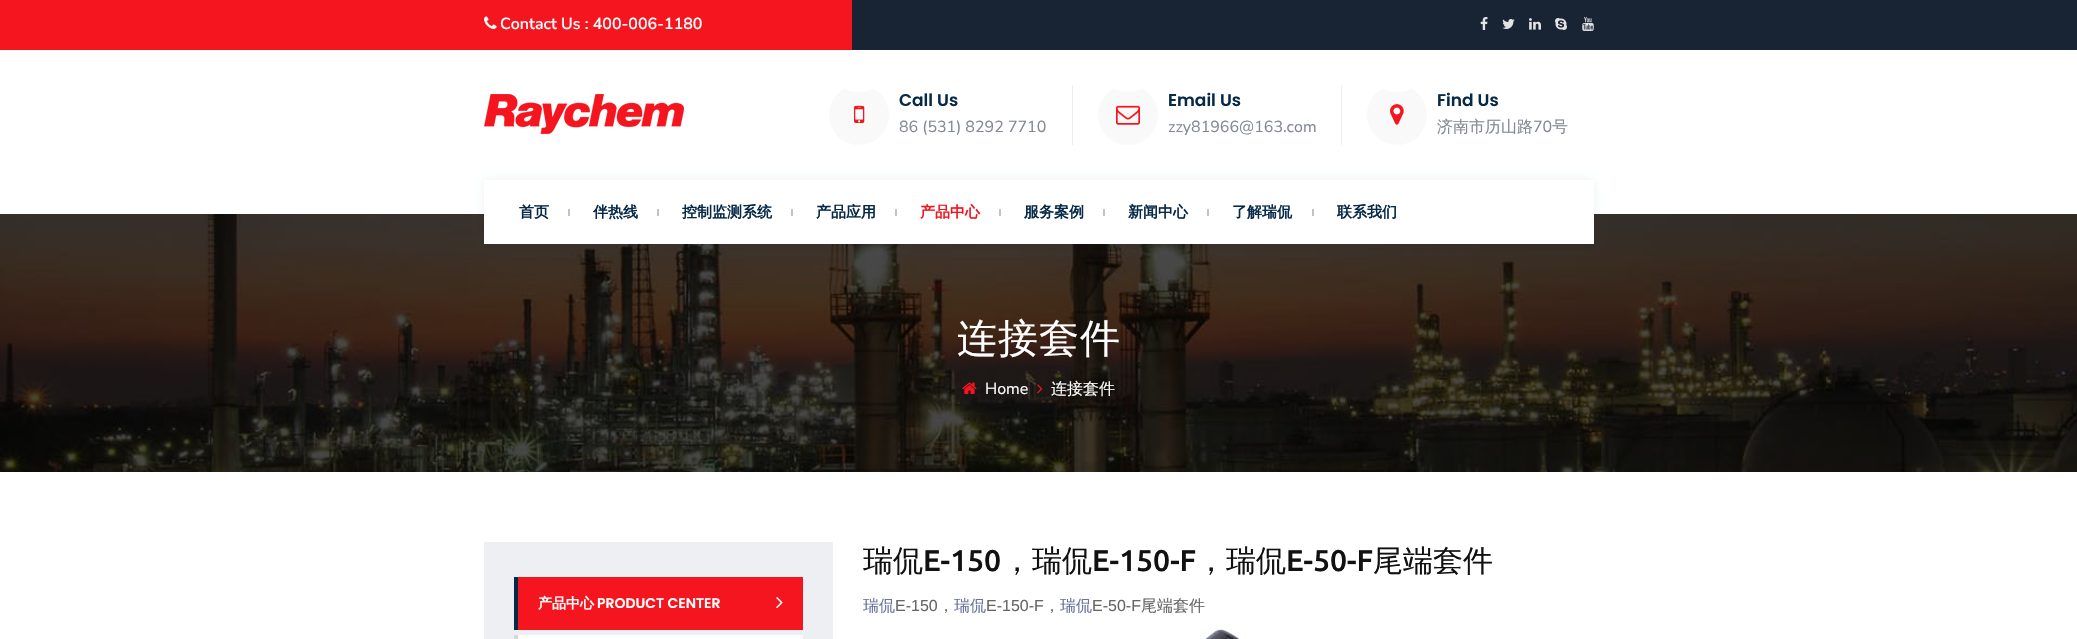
#include "include/core/SkBlurTypes.h"
#include "include/core/SkCanvas.h"
#include "include/core/SkData.h"
#include "include/core/SkFont.h"
#include "include/core/SkFontMgr.h"
#include "include/core/SkImage.h"
#include "include/core/SkMaskFilter.h"
#include "include/core/SkPaint.h"
#include "include/core/SkPathBuilder.h"
#include "include/core/SkTextBlob.h"
#include "include/effects/SkDashPathEffect.h"
#include "include/effects/SkGradientShader.h"
#include "include/utils/SkParsePath.h"

extern sk_sp<SkFontMgr> fontMgr;

void draw(SkCanvas* canvas) {
    SkPaint p;
    p.setAntiAlias(true);
    auto font = [&](const char* family, int weight, float size, bool italic = false) {
        SkFontStyle style(weight, SkFontStyle::kNormal_Width,
            italic ? SkFontStyle::kItalic_Slant : SkFontStyle::kUpright_Slant);
        SkFont result(fontMgr->matchFamilyStyle(family, style), size);
        result.setSubpixel(true);
        return result;
    };
    auto drawTracked = [&](const char* s, float x, float y, const SkFont& font, const SkPaint& ink, float letter, float word) {
        std::vector<SkGlyphID> glyphs(font.countText(s, strlen(s), SkTextEncoding::kUTF8));
        std::vector<float> xs(glyphs.size());
        font.textToGlyphs(s, strlen(s), SkTextEncoding::kUTF8, glyphs);
        font.getXPos(glyphs, xs, x);
        float extra = 0;
        for (size_t i = 0; i < glyphs.size(); i++) {
            xs[i] += extra;
            extra += letter + word * (glyphs[i] == font.unicharToGlyph(' '));
        }
        canvas->drawTextBlob(SkTextBlob::MakeFromPosHGlyphs(glyphs, xs, y, font), 0, 0, ink);
    };
    auto drawPhoto = [&](const char* path, float l, float t, float r, float b) {
        auto image = SkImages::DeferredFromEncodedData(SkData::MakeFromFileName(path));
        canvas->drawImageRect(image, SkRect::MakeLTRB(l, t, r, b), SkSamplingOptions());
    };
    canvas->clear(0xFFFFFFFF);
    p.setColor(0xFF182333);
    canvas->drawRect(SkRect::MakeLTRB(852, 0, 2077, 50), p);
    p.setColor(0xFFF5151F);
    canvas->drawRect(SkRect::MakeLTRB(0, 0, 852, 50), p);
    drawPhoto("media/1.png", 484, 16, 497, 29);
    auto font1 = font("Nunito Sans", 600, 16);
    p.setColor(0xFFFFFFFF);
    canvas->drawString("Contact Us : 400-006-1180", 500, 29, font1, p);
    drawPhoto("media/2.png", 1480, 17, 1488, 30);
    drawPhoto("media/3.png", 1502, 19, 1515, 29);
    drawPhoto("media/4.png", 1529, 18, 1541, 30);
    drawPhoto("media/5.png", 1555, 18, 1567, 30);
    drawPhoto("media/6.png", 1582, 17, 1594, 31);
    drawPhoto("media/7.png", 484, 94, 684, 134);
    p.setColor(0xFFEEEEEE);
    canvas->drawRect(SkRect::MakeLTRB(1072, 85, 1073, 145), p);
    p.setColor(0xFFF9F9F9);
    canvas->drawCircle(859, 115, 30, p);
    p.setColor(0xFFFFFFFF);
    canvas->drawOval(SkRect::MakeLTRB(844, 82, 874, 92), p);
    drawPhoto("media/8.png", 854, 105, 865, 123);
    auto font2 = font("Poppins", 600, 17);
    p.setColor(0xFF072948);
    canvas->drawString("Call Us", 899, 106, font2, p);
    auto font3 = font("Nunito Sans", 400, 16);
    p.setColor(0xFF828893);
    canvas->drawString("86 (531) 8292 7710", 899, 132, font3, p);
    p.setColor(0xFFEEEEEE);
    canvas->drawRect(SkRect::MakeLTRB(1341, 85, 1342, 145), p);
    p.setColor(0xFFF9F9F9);
    canvas->drawCircle(1128, 115, 30, p);
    p.setColor(0xFFFFFFFF);
    canvas->drawOval(SkRect::MakeLTRB(1113, 82, 1143, 92), p);
    drawPhoto("media/9.png", 1116, 105, 1140, 125);
    p.setColor(0xFF072948);
    canvas->drawString("Email Us", 1168, 106, font2, p);
    p.setColor(0xFF828893);
    canvas->drawString("zzy81966@163.com", 1168, 132, font3, p);
    p.setColor(0xFFF9F9F9);
    canvas->drawCircle(1397, 115, 30, p);
    p.setColor(0xFFFFFFFF);
    canvas->drawOval(SkRect::MakeLTRB(1382, 82, 1412, 92), p);
    drawPhoto("media/10.png", 1390, 104, 1404, 125);
    p.setColor(0xFF072948);
    canvas->drawString("Find Us", 1437, 106, font2, p);
    auto font4 = font("WenQuanYi Zen Hei", 500, 16);
    p.setColor(0xFF828893);
    canvas->drawString("济南市历山路", 1437, 132, font4, p);
    canvas->drawString("70", 1533, 132, font3, p);
    canvas->drawString("号", 1552, 132, font4, p);
    drawPhoto("media/11.png", 0, 214, 2077, 472);
    p.setColor(0x1206163A);
    p.setMaskFilter(SkMaskFilter::MakeBlur(kNormal_SkBlurStyle, 4.5f));
    canvas->drawRect(SkRect::MakeLTRB(484, 180, 1594, 244), p);
    p.setMaskFilter(nullptr);
    p.setColor(0xFFFFFFFF);
    canvas->drawRect(SkRect::MakeLTRB(484, 180, 1594, 244), p);
    auto font5 = font("WenQuanYi Zen Hei", 700, 15);
    p.setColor(0xFF072948);
    canvas->drawString("首页", 519, 217, font5, p);
    p.setColor(0xFFC2C2C2);
    canvas->drawRect(SkRect::MakeLTRB(568, 209, 570, 216), p);
    p.setColor(0xFF072948);
    canvas->drawString("伴热线", 593, 217, font5, p);
    p.setColor(0xFFC2C2C2);
    canvas->drawRect(SkRect::MakeLTRB(657, 209, 659, 216), p);
    p.setColor(0xFF072948);
    canvas->drawString("控制监测系统", 682, 217, font5, p);
    p.setColor(0xFFC2C2C2);
    canvas->drawRect(SkRect::MakeLTRB(791, 209, 793, 216), p);
    p.setColor(0xFF072948);
    canvas->drawString("产品应用", 816, 217, font5, p);
    p.setColor(0xFFC2C2C2);
    canvas->drawRect(SkRect::MakeLTRB(895, 209, 897, 216), p);
    p.setColor(0xFFF5151F);
    canvas->drawString("产品中心", 920, 217, font5, p);
    p.setColor(0xFFC2C2C2);
    canvas->drawRect(SkRect::MakeLTRB(999, 209, 1001, 216), p);
    p.setColor(0xFF072948);
    canvas->drawString("服务案例", 1024, 217, font5, p);
    p.setColor(0xFFC2C2C2);
    canvas->drawRect(SkRect::MakeLTRB(1103, 209, 1105, 216), p);
    p.setColor(0xFF072948);
    canvas->drawString("新闻中心", 1128, 217, font5, p);
    p.setColor(0xFFC2C2C2);
    canvas->drawRect(SkRect::MakeLTRB(1207, 209, 1209, 216), p);
    p.setColor(0xFF072948);
    canvas->drawString("了解瑞侃", 1232, 217, font5, p);
    p.setColor(0xFFC2C2C2);
    canvas->drawRect(SkRect::MakeLTRB(1312, 209, 1314, 216), p);
    p.setColor(0xFF072948);
    canvas->drawString("联系我们", 1337, 217, font5, p);
    auto font6 = font("WenQuanYi Zen Hei", 500, 40);
    p.setColor(0xFFFFFFFF);
    drawTracked("连接套件", 957, 352, font6, p, 1, 0);
    drawPhoto("media/12.png", 962, 382, 977, 394);
    canvas->drawString("Home", 985, 394, font3, p);
    drawPhoto("media/13.png", 1037, 384, 1043, 394);
    canvas->drawString("连接套件", 1051, 394, font4, p);
    {
        const struct { float l, t, r, b; SkColor color; } items[] = {
            {484, 542, 833, 639, 0xFFEDEFF2},
            {518, 577, 803, 630, 0xFFF5151F},
            {514, 577, 518, 630, 0xFF072948},
        };
        for (auto [l, t, r, b, color] : items) {
            p.setColor(color);
            canvas->drawRect(SkRect::MakeLTRB(l, t, r, b), p);
        }
    }
    auto font7 = font("WenQuanYi Zen Hei", 700, 14);
    p.setColor(0xFFFFFFFF);
    canvas->drawString("产品中心", 538, 608, font7, p);
    auto font8 = font("Poppins", 600, 14);
    canvas->drawString("PRODUCT CENTER", 597, 608, font8, p);
    drawPhoto("media/14.png", 776, 597, 783, 609);
    canvas->drawRect(SkRect::MakeLTRB(514, 635, 803, 639), p);
    p.setColor(0xFFD7D7D7);
    canvas->drawRect(SkRect::MakeLTRB(514, 635, 518, 639), p);
    auto font9 = font("WenQuanYi Zen Hei", 500, 30);
    p.setColor(0xFF111111);
    canvas->drawString("瑞侃", 863, 571, font9, p);
    auto font10 = font("Ubuntu", 500, 30);
    canvas->drawString("E-150", 923, 571, font10, p);
    canvas->drawString("，瑞侃", 1002, 571, font9, p);
    canvas->drawString("E-150-F", 1092, 571, font10, p);
    canvas->drawString("，瑞侃", 1196, 571, font9, p);
    canvas->drawString("E-50-F", 1286, 571, font10, p);
    canvas->drawString("尾端套件", 1373, 571, font9, p);
    p.setColor(0xFF6B739C);
    canvas->drawString("瑞侃", 863, 611, font4, p);
    auto font11 = font("Liberation Sans", 400, 16);
    p.setColor(0xFF666666);
    canvas->drawString("E-150", 895, 611, font11, p);
    canvas->drawString("，", 938, 611, font4, p);
    p.setColor(0xFF6B739C);
    canvas->drawString("瑞侃", 954, 611, font4, p);
    p.setColor(0xFF666666);
    canvas->drawString("E-150-F", 986, 611, font11, p);
    canvas->drawString("，", 1044, 611, font4, p);
    p.setColor(0xFF6B739C);
    canvas->drawString("瑞侃", 1060, 611, font4, p);
    p.setColor(0xFF666666);
    canvas->drawString("E-50-F", 1092, 611, font11, p);
    canvas->drawString("尾端套件", 1141, 611, font4, p);
    drawPhoto("media/15.png", 1199, 627, 1246, 639);
}
